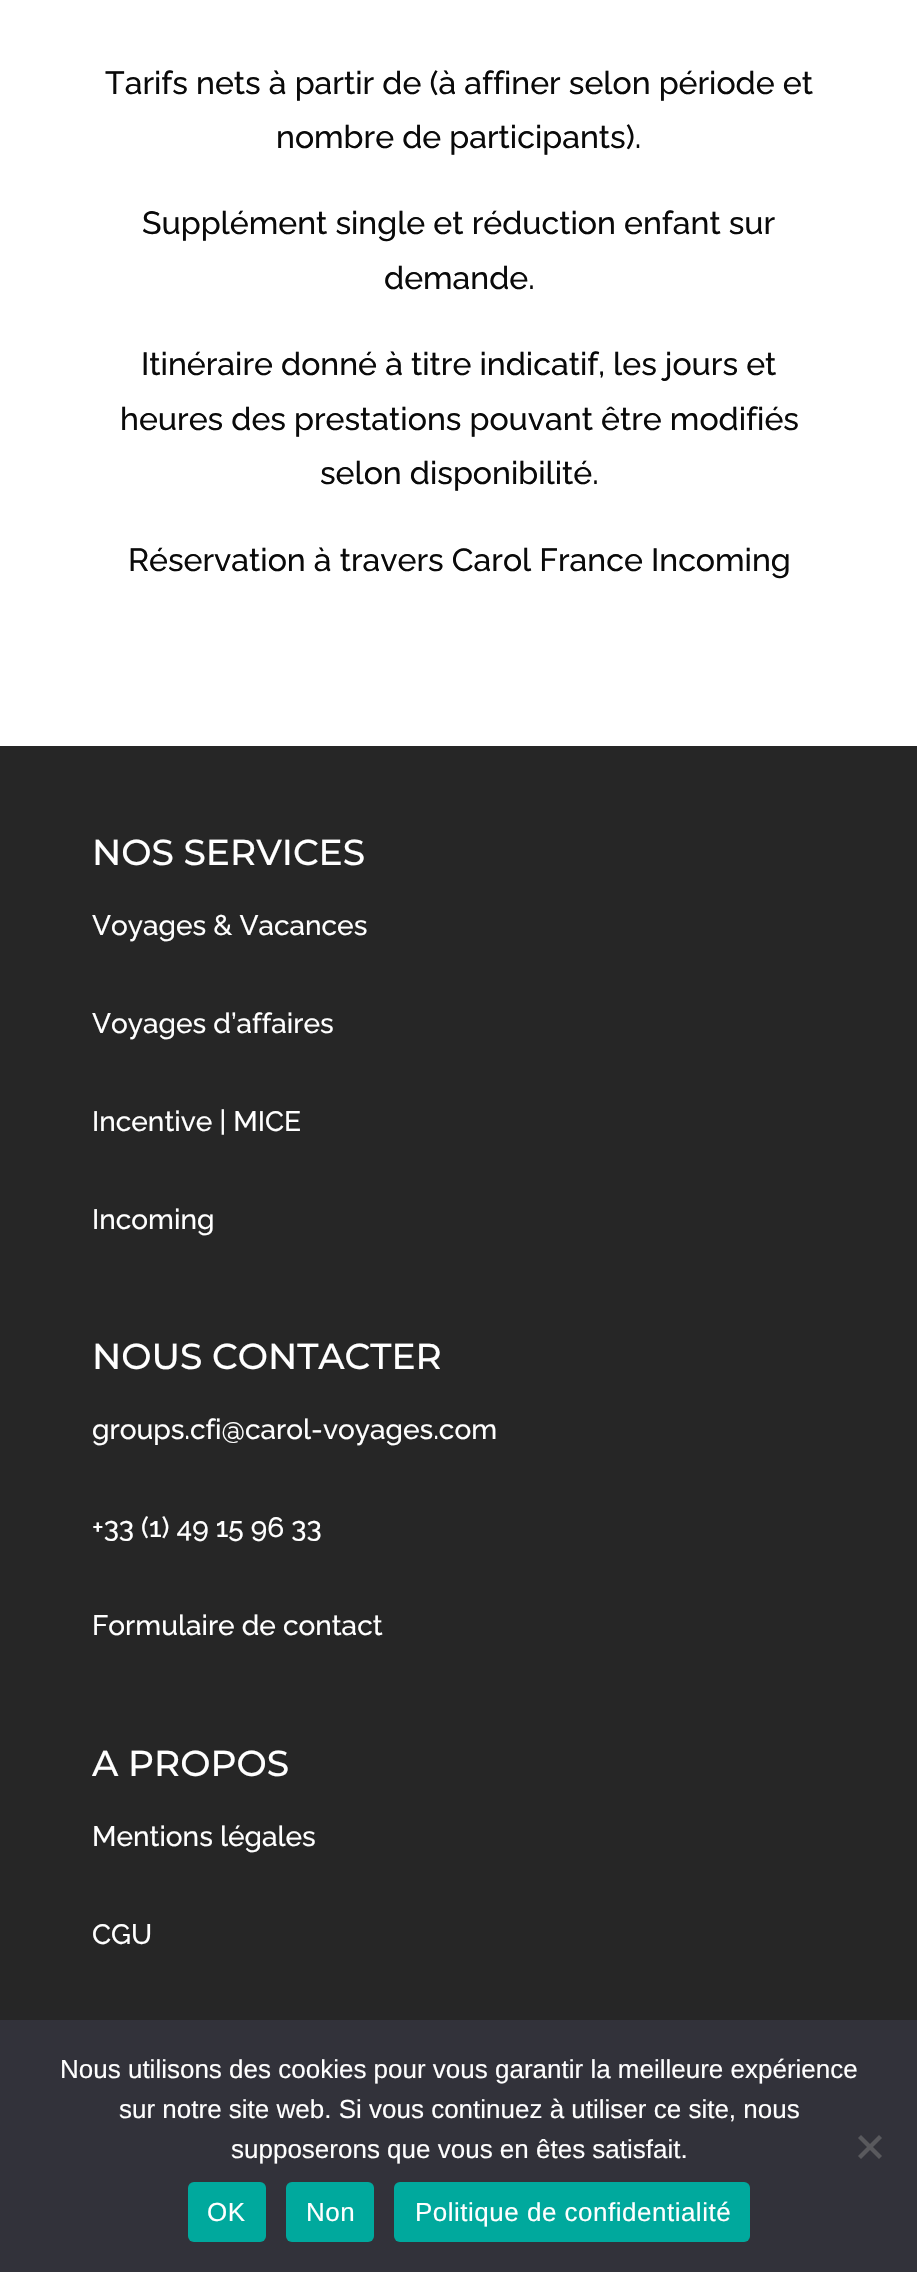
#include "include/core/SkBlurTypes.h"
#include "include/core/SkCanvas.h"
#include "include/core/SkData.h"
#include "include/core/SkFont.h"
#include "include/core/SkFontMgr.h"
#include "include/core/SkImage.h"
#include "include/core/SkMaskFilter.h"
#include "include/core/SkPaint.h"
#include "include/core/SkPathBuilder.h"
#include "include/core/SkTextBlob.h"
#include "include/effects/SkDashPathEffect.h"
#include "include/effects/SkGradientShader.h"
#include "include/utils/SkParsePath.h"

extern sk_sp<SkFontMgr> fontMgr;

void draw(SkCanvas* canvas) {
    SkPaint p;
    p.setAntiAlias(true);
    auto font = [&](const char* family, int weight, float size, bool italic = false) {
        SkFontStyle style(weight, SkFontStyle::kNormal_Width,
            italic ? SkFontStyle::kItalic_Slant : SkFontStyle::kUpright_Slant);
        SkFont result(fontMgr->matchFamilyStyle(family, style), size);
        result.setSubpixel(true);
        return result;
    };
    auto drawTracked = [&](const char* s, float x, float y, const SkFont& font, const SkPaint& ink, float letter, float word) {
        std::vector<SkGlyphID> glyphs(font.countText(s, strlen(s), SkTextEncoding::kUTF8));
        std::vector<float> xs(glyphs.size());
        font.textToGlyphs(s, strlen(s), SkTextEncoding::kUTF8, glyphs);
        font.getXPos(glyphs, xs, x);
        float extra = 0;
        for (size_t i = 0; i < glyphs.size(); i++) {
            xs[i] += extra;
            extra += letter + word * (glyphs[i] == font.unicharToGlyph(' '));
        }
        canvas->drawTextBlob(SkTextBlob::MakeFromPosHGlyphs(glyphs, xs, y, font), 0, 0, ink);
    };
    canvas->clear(0xFFFFFFFF);
    auto font1 = font("Raleway", 500, 32);
    p.setColor(0xFF0A0A0A);
    {
        const struct { const char* s; float x, y; } items[] = {
            {"Tarifs nets à partir de (à affiner selon période et", 105, 94},
            {"nombre de participants).", 276, 148},
            {"Supplément single et réduction enfant sur", 142, 234},
            {"demande.", 384, 289},
            {"Itinéraire donné à titre indicatif, les jours et", 141, 375},
            {"heures des prestations pouvant être modifiés", 120, 430},
            {"selon disponibilité.", 320, 484},
            {"Réservation à travers Carol France Incoming", 128, 571},
        };
        for (auto [s, x, y] : items) {
            canvas->drawString(s, x, y, font1, p);
        }
    }
    p.setColor(0xFF262626);
    canvas->drawRect(SkRect::MakeLTRB(0, 746, 917, 2020), p);
    auto font2 = font("Montserrat", 500, 36);
    p.setColor(0xFFFFFFFF);
    canvas->drawString("NOS SERVICES", 92, 865, font2, p);
    auto font3 = font("Raleway", 500, 28);
    {
        const struct { const char* s; float x, y; } items[] = {
            {"Voyages & Vacances", 92, 935},
            {"Voyages d’affaires", 92, 1033},
            {"Incentive | MICE", 92, 1131},
            {"Incoming", 92, 1229},
        };
        for (auto [s, x, y] : items) {
            canvas->drawString(s, x, y, font3, p);
        }
    }
    canvas->drawString("NOUS CONTACTER", 92, 1369, font2, p);
    {
        const struct { const char* s; float x, y; } items[] = {
            {"groups.cfi@carol-voyages.com", 92, 1439},
            {"+33 (1) 49 15 96 33", 92, 1537},
            {"Formulaire de contact", 92, 1635},
        };
        for (auto [s, x, y] : items) {
            canvas->drawString(s, x, y, font3, p);
        }
    }
    canvas->drawString("A PROPOS", 92, 1776, font2, p);
    canvas->drawString("Mentions légales", 92, 1846, font3, p);
    canvas->drawString("CGU", 92, 1944, font3, p);
    p.setColor(0xFF32323A);
    canvas->drawRect(SkRect::MakeLTRB(0, 2020, 917, 2272), p);
    auto font4 = font("Liberation Sans", 400, 26);
    p.setColor(0xFFFFFFFF);
    {
        const struct { const char* s; float x, y; } items[] = {
            {"Nous utilisons des cookies pour vous garantir la meilleure expérience", 60, 2078},
            {"sur notre site web. Si vous continuez à utiliser ce site, nous", 119, 2118},
            {"supposerons que vous en êtes satisfait.", 231, 2158},
        };
        for (auto [s, x, y] : items) {
            canvas->drawString(s, x, y, font4, p);
        }
    }
    p.setColor(0xFF59595D);
    canvas->drawPath(SkPathBuilder().moveTo(879, 2135).lineTo(882, 2138).lineTo(861, 2159).lineTo(858, 2156).close().detach(), p);
    canvas->drawPath(SkPathBuilder().moveTo(858, 2138).lineTo(861, 2135).lineTo(882, 2156).lineTo(879, 2159).close().detach(), p);
    p.setColor(0xFF00A99D);
    canvas->drawRoundRect(SkRect::MakeLTRB(188, 2182, 266, 2242), 6, 6, p);
    p.setColor(0xFFFFFFFF);
    drawTracked("OK", 207, 2221, font4, p, 0.5f, 0);
    p.setColor(0xFF00A99D);
    canvas->drawRoundRect(SkRect::MakeLTRB(286, 2182, 374, 2242), 6, 6, p);
    p.setColor(0xFFFFFFFF);
    drawTracked("Non", 306, 2221, font4, p, 0.5f, 0);
    p.setColor(0xFF00A99D);
    canvas->drawRoundRect(SkRect::MakeLTRB(394, 2182, 750, 2242), 6, 6, p);
    p.setColor(0xFFFFFFFF);
    drawTracked("Politique de confidentialité", 415, 2221, font4, p, 0.5f, 0);
}
